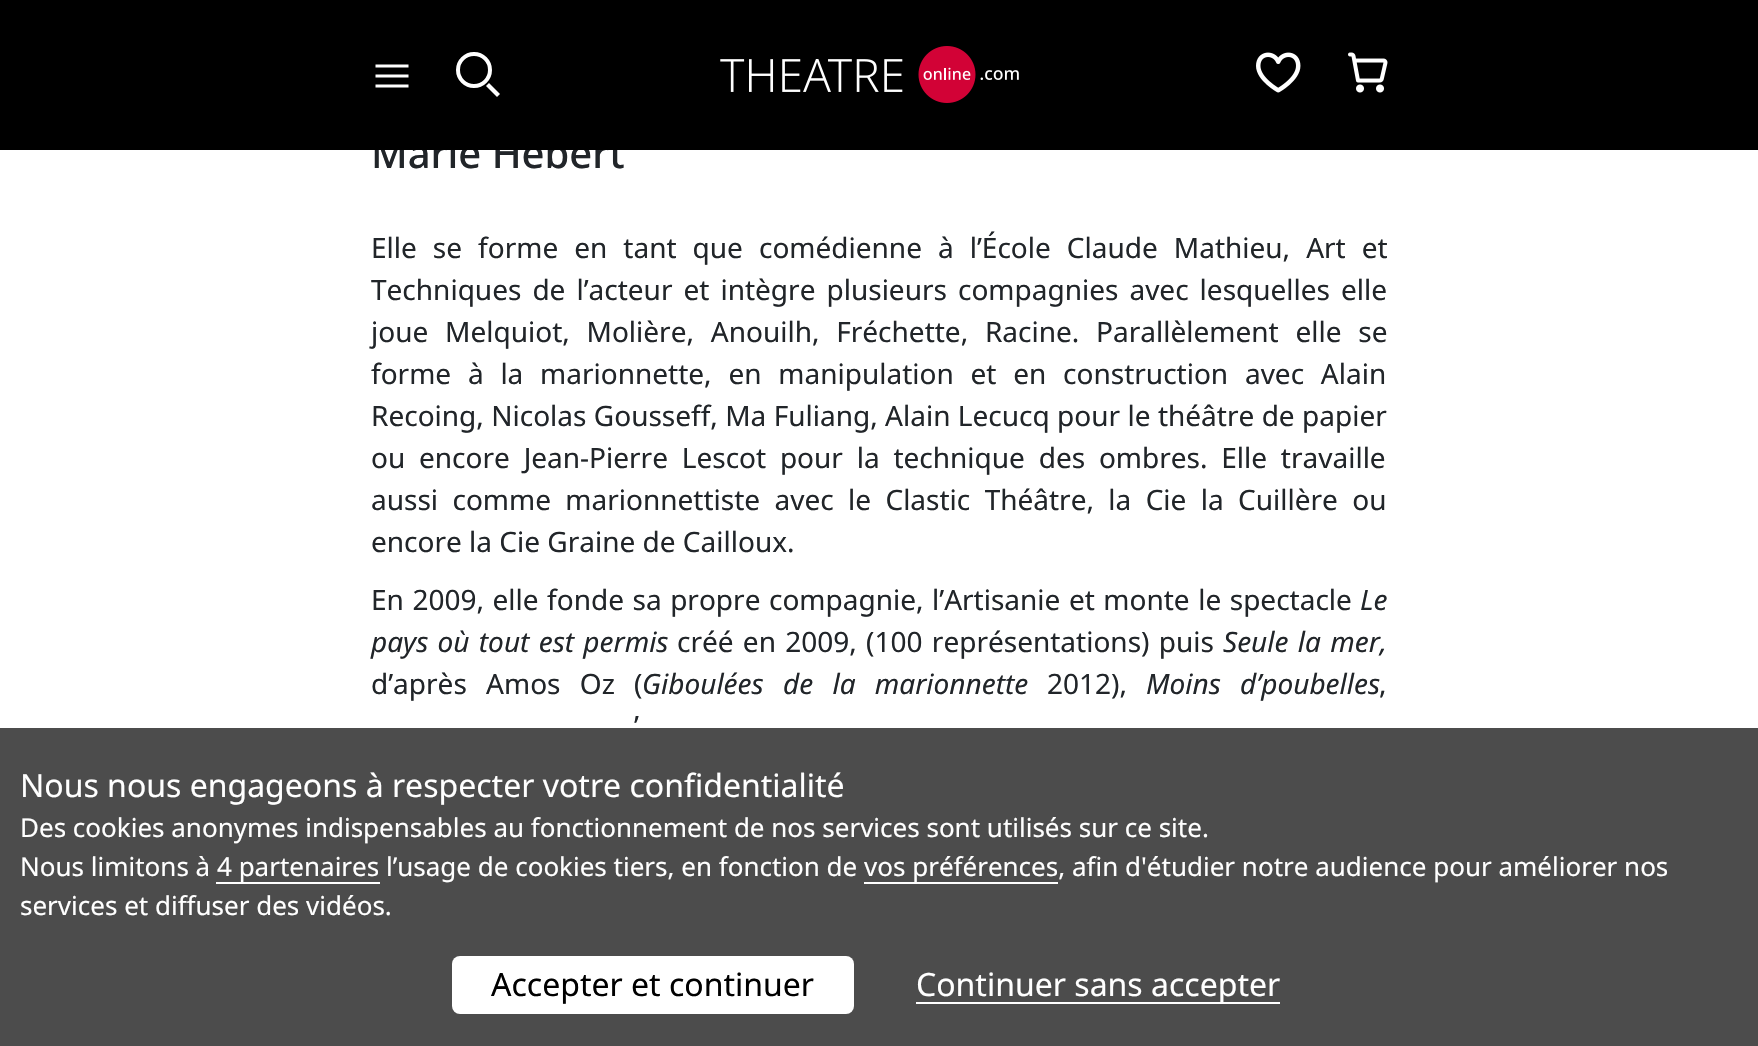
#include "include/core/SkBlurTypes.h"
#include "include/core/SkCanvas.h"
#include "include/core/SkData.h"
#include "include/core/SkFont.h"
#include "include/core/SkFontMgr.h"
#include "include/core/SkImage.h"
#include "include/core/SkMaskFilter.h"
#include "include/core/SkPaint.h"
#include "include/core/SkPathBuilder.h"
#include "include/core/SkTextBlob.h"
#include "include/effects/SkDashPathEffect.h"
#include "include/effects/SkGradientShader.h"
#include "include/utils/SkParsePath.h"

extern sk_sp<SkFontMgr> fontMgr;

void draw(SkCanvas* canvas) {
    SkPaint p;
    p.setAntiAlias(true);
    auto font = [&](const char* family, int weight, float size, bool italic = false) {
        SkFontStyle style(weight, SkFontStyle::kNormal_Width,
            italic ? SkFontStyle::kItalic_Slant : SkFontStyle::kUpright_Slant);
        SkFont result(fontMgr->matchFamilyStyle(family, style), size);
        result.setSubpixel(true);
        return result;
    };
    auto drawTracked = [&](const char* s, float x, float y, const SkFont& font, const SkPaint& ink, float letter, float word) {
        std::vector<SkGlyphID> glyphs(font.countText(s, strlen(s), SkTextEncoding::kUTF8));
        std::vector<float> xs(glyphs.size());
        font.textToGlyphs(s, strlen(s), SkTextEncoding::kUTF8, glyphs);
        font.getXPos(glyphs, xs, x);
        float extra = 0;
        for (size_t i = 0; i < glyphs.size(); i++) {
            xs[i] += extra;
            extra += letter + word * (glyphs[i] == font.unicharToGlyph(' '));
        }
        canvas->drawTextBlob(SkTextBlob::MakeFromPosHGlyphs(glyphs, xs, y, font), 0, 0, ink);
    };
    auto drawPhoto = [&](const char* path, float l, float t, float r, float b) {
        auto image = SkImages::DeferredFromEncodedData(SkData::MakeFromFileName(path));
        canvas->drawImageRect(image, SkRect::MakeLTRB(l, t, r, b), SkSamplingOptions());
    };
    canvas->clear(0xFFFFFFFF);
    auto font1 = font("Noto Sans", 500, 40);
    p.setColor(0xFF212529);
    canvas->drawString("Marie Hébert", 371, 168, font1, p);
    p.setColor(0xFF000000);
    canvas->drawRect(SkRect::MakeLTRB(0, 0, 1758, 150), p);
    p.setColor(0xFFFFFFFF);
    canvas->drawPath(SkPathBuilder().moveTo(375.5f, 64.5f).lineTo(375.5f, 67.5f).lineTo(408.5f, 67.5f).lineTo(408.5f, 64.5f).close().moveTo(375.5f, 74.5f).lineTo(375.5f, 77.5f).lineTo(408.5f, 77.5f).lineTo(408.5f, 74.5f).close().moveTo(375.5f, 84.5f).lineTo(375.5f, 87.5f).lineTo(408.5f, 87.5f).lineTo(408.5f, 84.5f).close().detach(), p);
    canvas->drawPath(SkPathBuilder().moveTo(489, 83).lineTo(500, 94).lineTo(497, 97).lineTo(486, 86).close().detach(), p);
    p.setStyle(SkPaint::kStroke_Style);
    p.setStrokeWidth(4);
    canvas->drawCircle(474, 70, 16, p);
    drawPhoto("media/1.png", 720, 46, 1019, 103);
    drawPhoto("media/2.png", 1256, 52, 1301, 93);
    drawPhoto("media/3.png", 1348, 52, 1388, 93);
    auto font2 = font("Noto Sans", 400, 28);
    p.setStyle(SkPaint::kFill_Style);
    p.setColor(0xFF212529);
    drawTracked("Elle se forme en tant que comédienne à l’École Claude Mathieu, Art et", 371, 258, font2, p, 0, 8.75f);
    drawTracked("Techniques de l’acteur et intègre plusieurs compagnies avec lesquelles elle", 371, 300, font2, p, 0, 3.75f);
    drawTracked("joue Melquiot, Molière, Anouilh, Fréchette, Racine. Parallèlement elle se", 371, 342, font2, p, 0, 9.5f);
    drawTracked("forme à la marionnette, en manipulation et en construction avec Alain", 371, 384, font2, p, 0, 9.5f);
    drawTracked("Recoing, Nicolas Gousseff, Ma Fuliang, Alain Lecucq pour le théâtre de papier", 371, 426, font2, p, 0, 0.1f);
    drawTracked("ou encore Jean-Pierre Lescot pour la technique des ombres. Elle travaille", 371, 468, font2, p, 0, 6.5f);
    drawTracked("aussi comme marionnettiste avec le Clastic Théâtre, la Cie la Cuillère ou", 371, 510, font2, p, 0, 7.1f);
    canvas->drawString("encore la Cie Graine de Cailloux.", 371, 552, font2, p);
    drawTracked("En 2009, elle fonde sa propre compagnie, l’Artisanie et monte le spectacle", 371, 610, font2, p, 0, 1.25f);
    auto font3 = font("Noto Sans", 400, 28, true);
    canvas->drawString("Le", 1360, 610, font3, p);
    drawTracked("pays où tout est permis", 371, 652, font3, p, 0, 2);
    drawTracked("créé en 2009, (100 représentations) puis", 677, 652, font2, p, 0, 2);
    drawTracked("Seule la mer,", 1223, 652, font3, p, 0, 2);
    drawTracked("d’après Amos Oz (", 371, 694, font2, p, 0, 12);
    drawTracked("Giboulées de la marionnette", 642, 694, font3, p, 0, 12);
    canvas->drawString("2012),", 1047, 694, font2, p);
    drawTracked("Moins d’poubelles", 1146, 694, font3, p, 0, 12);
    canvas->drawString(",", 1379, 694, font2, p);
    drawTracked("’", 634, 736, font2, p, 0, 9);
    p.setColor(0xB3000000);
    canvas->drawRect(SkRect::MakeLTRB(0, 728, 1758, 1046), p);
    auto font4 = font("Noto Sans", 400, 32);
    p.setColor(0xFFFFFFFF);
    canvas->drawString("Nous nous engageons à respecter votre confidentialité", 20, 797, font4, p);
    auto font5 = font("Noto Sans", 400, 26);
    canvas->drawString("Des cookies anonymes indispensables au fonctionnement de nos services sont utilisés sur ce site.", 20, 837, font5, p);
    canvas->drawString("Nous limitons à", 20, 876, font5, p);
    canvas->drawRect(SkRect::MakeLTRB(216, 882, 380, 884), p);
    canvas->drawString("4 partenaires l’usage de cookies tiers, en fonction de", 217, 876, font5, p);
    canvas->drawRect(SkRect::MakeLTRB(864, 882, 1058, 884), p);
    canvas->drawString("vos préférences, afin d'étudier notre audience pour améliorer nos", 864, 876, font5, p);
    canvas->drawString("services et diffuser des vidéos.", 20, 915, font5, p);
    canvas->drawRoundRect(SkRect::MakeLTRB(452, 956, 854, 1014), 8, 8, p);
    p.setColor(0xFF000000);
    canvas->drawString("Accepter et continuer", 491, 996, font4, p);
    p.setColor(0xFFFFFFFF);
    canvas->drawRect(SkRect::MakeLTRB(916, 1002, 1280, 1004), p);
    canvas->drawString("Continuer sans accepter", 916, 996, font4, p);
}
